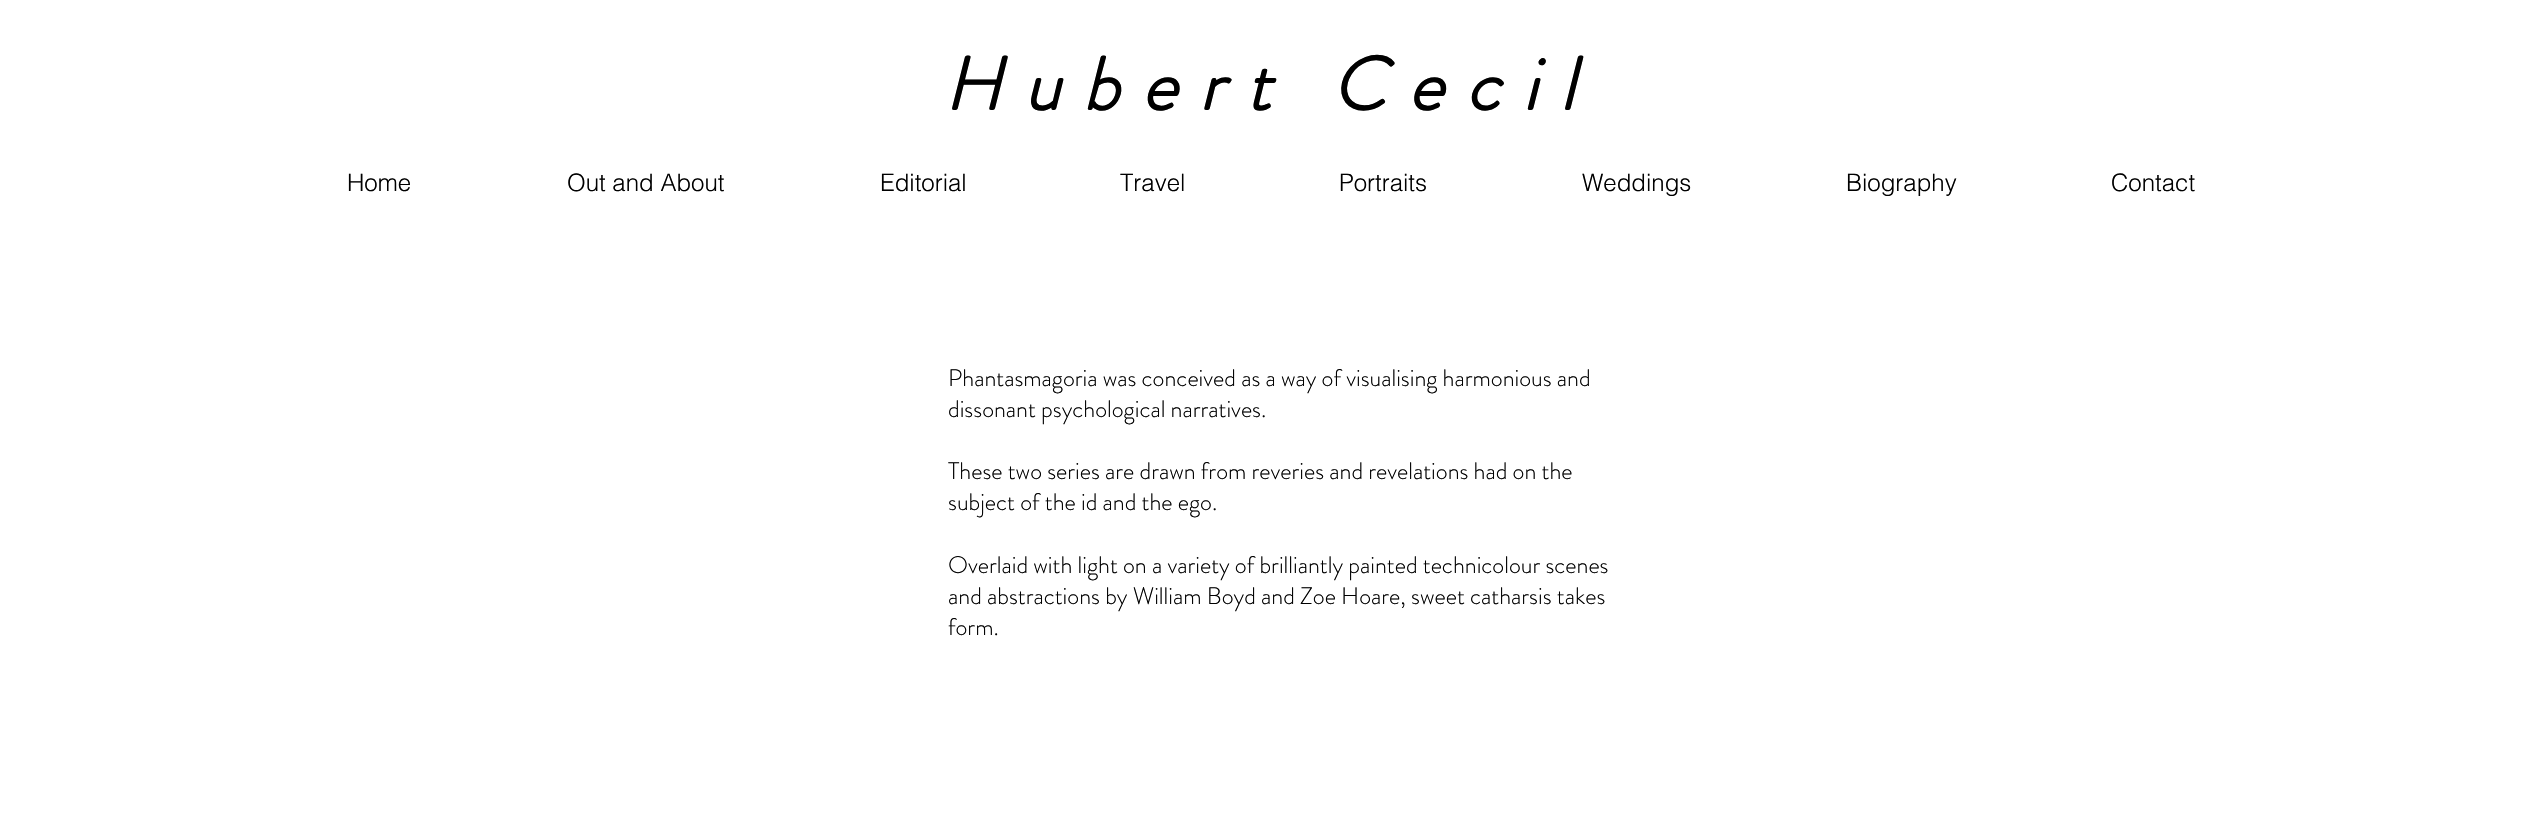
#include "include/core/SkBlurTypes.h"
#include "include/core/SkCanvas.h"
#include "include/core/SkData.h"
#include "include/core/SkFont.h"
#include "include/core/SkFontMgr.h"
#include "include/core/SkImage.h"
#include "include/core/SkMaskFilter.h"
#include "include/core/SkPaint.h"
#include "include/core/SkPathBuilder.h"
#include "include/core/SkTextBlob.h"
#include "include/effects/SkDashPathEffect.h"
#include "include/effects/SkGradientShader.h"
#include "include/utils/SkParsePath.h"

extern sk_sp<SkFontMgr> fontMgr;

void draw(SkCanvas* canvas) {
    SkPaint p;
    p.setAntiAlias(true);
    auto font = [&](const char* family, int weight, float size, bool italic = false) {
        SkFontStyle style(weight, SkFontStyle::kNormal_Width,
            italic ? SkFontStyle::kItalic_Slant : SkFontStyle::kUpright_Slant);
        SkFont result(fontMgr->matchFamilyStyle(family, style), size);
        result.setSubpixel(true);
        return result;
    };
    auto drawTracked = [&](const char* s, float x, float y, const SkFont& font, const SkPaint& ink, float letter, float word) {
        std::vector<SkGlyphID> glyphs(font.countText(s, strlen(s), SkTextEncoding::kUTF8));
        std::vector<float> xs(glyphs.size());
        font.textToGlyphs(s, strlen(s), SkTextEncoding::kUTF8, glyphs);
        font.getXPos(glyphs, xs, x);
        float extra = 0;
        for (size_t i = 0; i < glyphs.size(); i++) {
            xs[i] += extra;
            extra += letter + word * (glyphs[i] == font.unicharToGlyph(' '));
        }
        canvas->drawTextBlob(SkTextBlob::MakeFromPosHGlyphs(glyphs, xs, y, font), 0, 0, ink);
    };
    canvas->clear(0xFFFFFFFF);
    auto font1 = font("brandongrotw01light", 700, 75, true);
    p.setColor(0xFF000000);
    drawTracked("Hubert Cecil", 944, 110, font1, p, 22.5f, 0);
    auto font2 = font("helvetica", 300, 24);
    {
        const struct { const char* s; float x, y; } items[] = {
            {"Home", 347, 191},
            {"Out and About", 567, 191},
            {"Editorial", 880, 191},
            {"Travel", 1120, 191},
            {"Portraits", 1339, 191},
            {"Weddings", 1582, 191},
            {"Biography", 1846, 191},
            {"Contact", 2111, 191},
        };
        for (auto [s, x, y] : items) {
            canvas->drawString(s, x, y, font2, p);
        }
    }
    auto font3 = font("brandongrotw01light", 300, 24);
    {
        const struct { const char* s; float x, y; } items[] = {
            {"Phantasmagoria was conceived as a way of visualising harmonious and", 948, 386},
            {"dissonant psychological narratives.", 948, 417},
            {"These two series are drawn from reveries and revelations had on the", 948, 479},
            {"subject of the id and the ego.", 948, 510},
            {"Overlaid with light on a variety of brilliantly painted technicolour scenes", 948, 573},
            {"and abstractions by William Boyd and Zoe Hoare, sweet catharsis takes", 948, 604},
            {"form.", 948, 635},
        };
        for (auto [s, x, y] : items) {
            canvas->drawString(s, x, y, font3, p);
        }
    }
}
